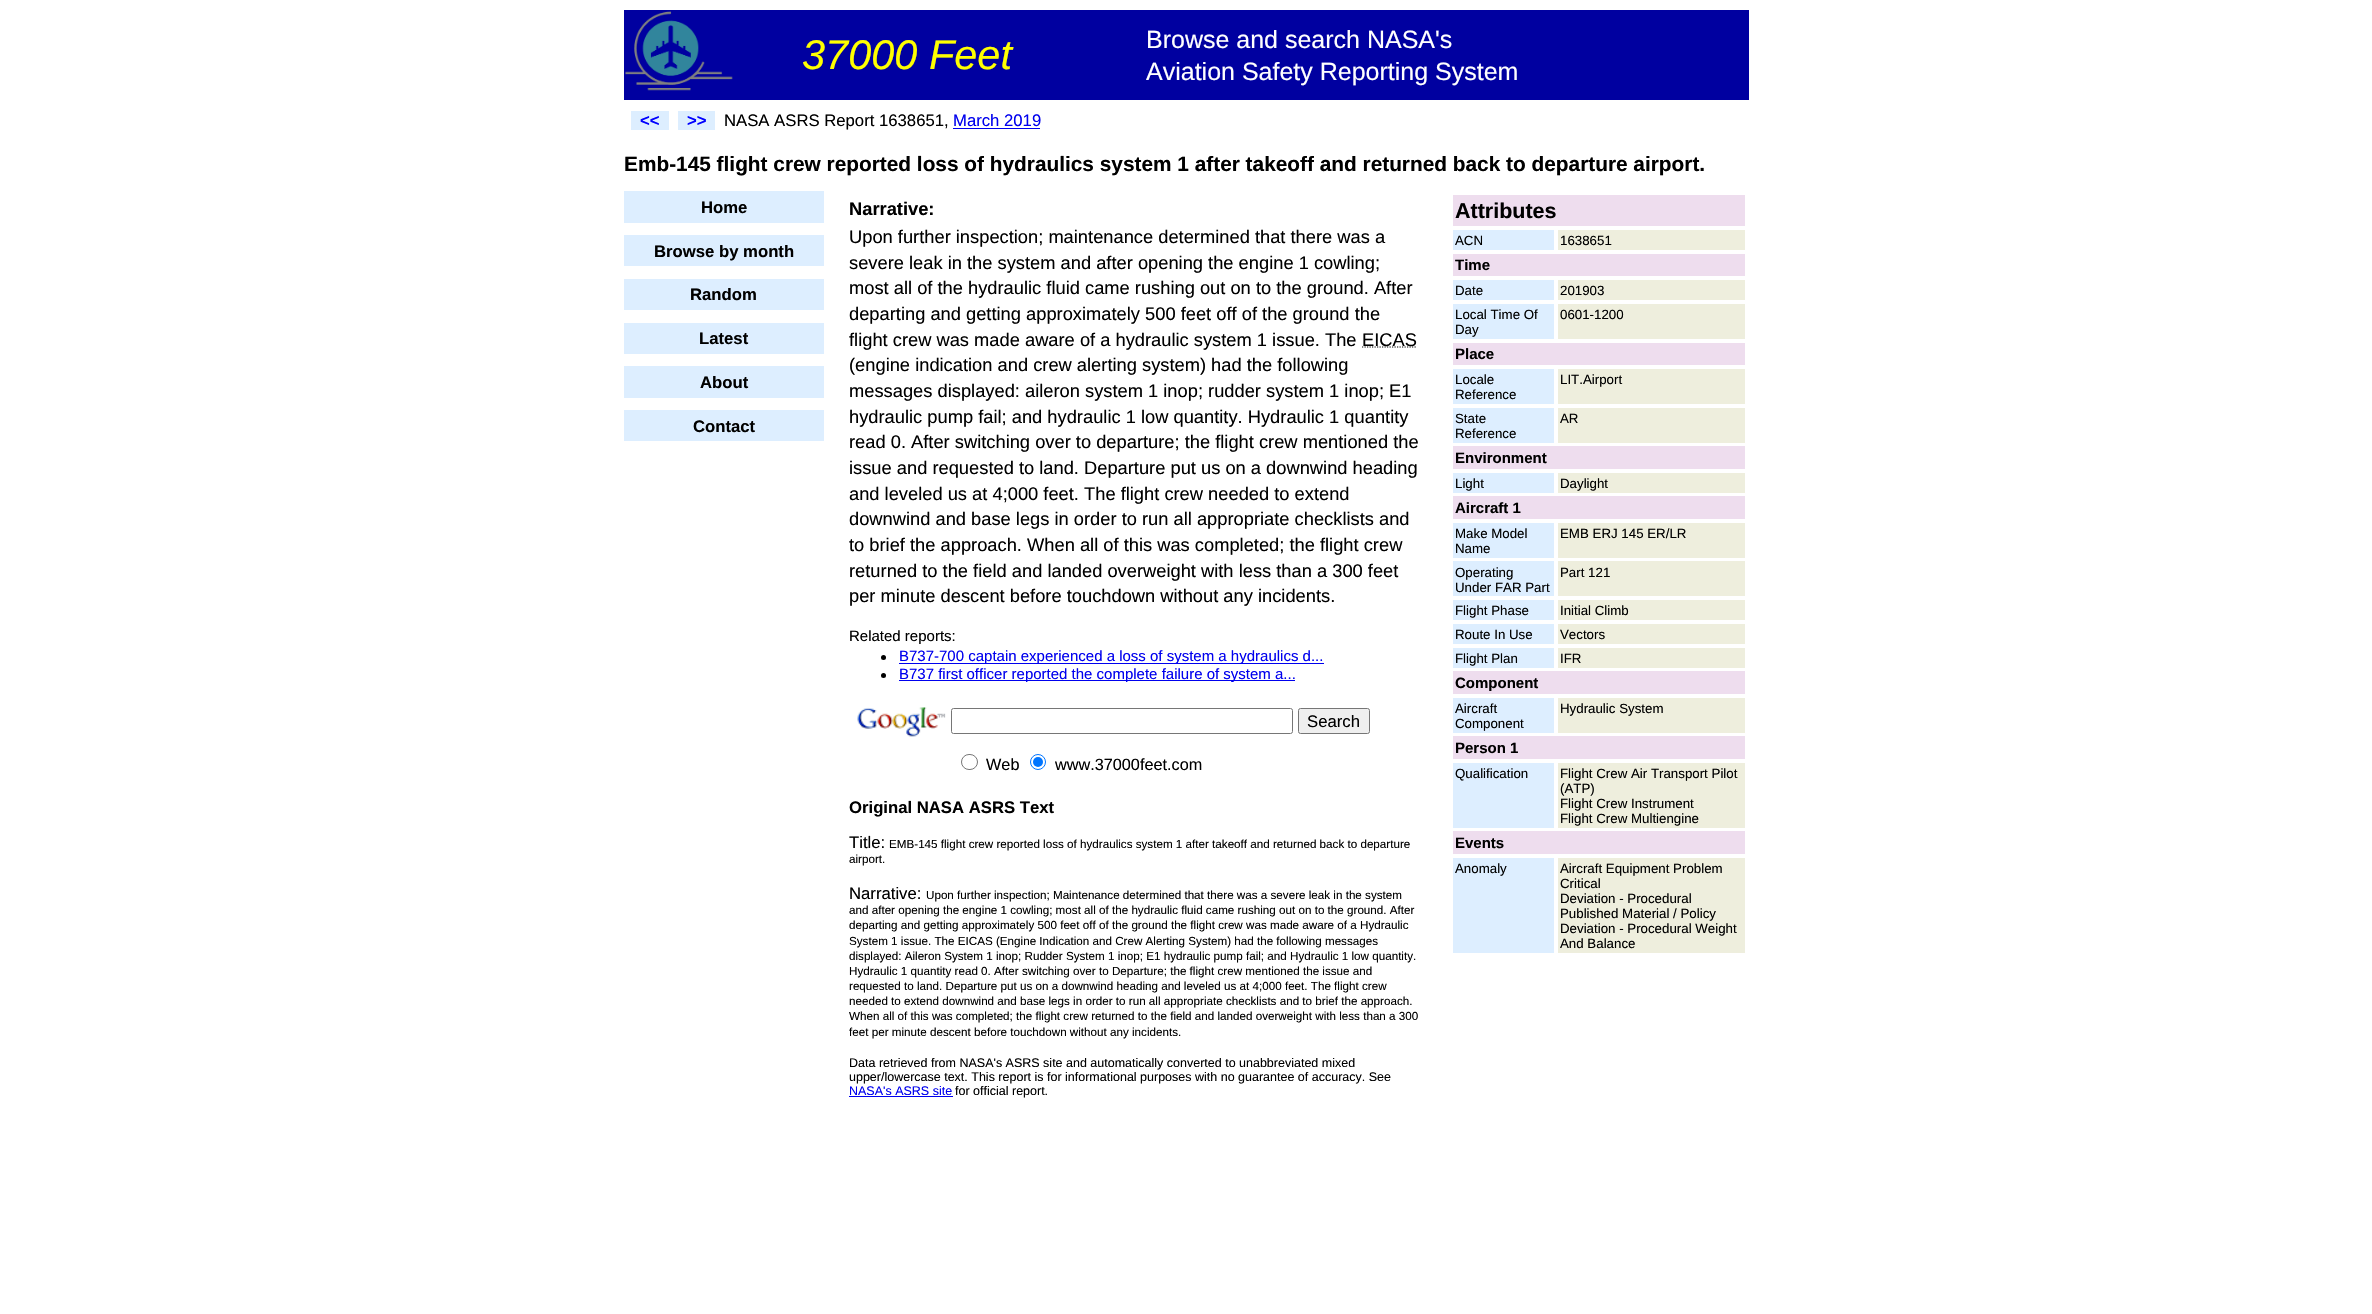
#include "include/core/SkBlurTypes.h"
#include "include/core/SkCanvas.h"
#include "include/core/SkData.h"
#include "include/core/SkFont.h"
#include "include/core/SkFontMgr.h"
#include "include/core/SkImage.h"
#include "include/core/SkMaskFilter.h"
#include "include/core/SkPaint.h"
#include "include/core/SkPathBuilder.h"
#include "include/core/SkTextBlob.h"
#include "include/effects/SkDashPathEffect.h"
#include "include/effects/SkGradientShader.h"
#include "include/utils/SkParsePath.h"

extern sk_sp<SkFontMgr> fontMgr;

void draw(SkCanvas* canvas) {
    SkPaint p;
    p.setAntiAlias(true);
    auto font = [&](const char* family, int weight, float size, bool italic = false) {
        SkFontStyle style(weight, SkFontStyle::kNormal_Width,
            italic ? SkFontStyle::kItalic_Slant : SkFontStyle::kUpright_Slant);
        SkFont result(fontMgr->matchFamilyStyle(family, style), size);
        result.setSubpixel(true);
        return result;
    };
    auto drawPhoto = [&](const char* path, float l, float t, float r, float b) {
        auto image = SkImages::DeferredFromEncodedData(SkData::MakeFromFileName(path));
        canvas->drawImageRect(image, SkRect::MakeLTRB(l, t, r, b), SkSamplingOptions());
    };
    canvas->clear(0xFFFFFFFF);
    p.setColor(0xFF0000A0);
    canvas->drawRect(SkRect::MakeLTRB(624, 10, 1749, 100), p);
    drawPhoto("media/1.png", 625, 11, 733, 91);
    auto font1 = font("Liberation Sans", 400, 41.5f, true);
    p.setColor(0xFFFFFF00);
    canvas->drawString("37000 Feet", 802, 69, font1, p);
    auto font2 = font("Liberation Sans", 400, 25);
    p.setColor(0xFFFFFFFF);
    canvas->drawString("Browse and search NASA's", 1146, 48, font2, p);
    canvas->drawString("Aviation Safety Reporting System", 1146, 80, font2, p);
    p.setColor(0xFFDDEEFF);
    canvas->drawRect(SkRect::MakeLTRB(631, 111, 669, 130), p);
    auto font3 = font("Liberation Sans", 700, 16.7f);
    p.setColor(0xFF0000FF);
    canvas->drawString("<<", 640, 126, font3, p);
    p.setColor(0xFFDDEEFF);
    canvas->drawRect(SkRect::MakeLTRB(678, 111, 715, 130), p);
    p.setColor(0xFF0000FF);
    canvas->drawString(">>", 687, 126, font3, p);
    auto font4 = font("Liberation Sans", 400, 16.7f);
    p.setColor(0xFF000000);
    canvas->drawString("NASA ASRS Report 1638651,", 724, 126, font4, p);
    p.setColor(0xFF0000EE);
    canvas->drawString("March 2019", 953, 126, font4, p);
    canvas->drawRect(SkRect::MakeLTRB(953, 128, 1040, 129), p);
    auto font5 = font("Liberation Sans", 700, 20.83f);
    p.setColor(0xFF000000);
    canvas->drawString("Emb-145 flight crew reported loss of hydraulics system 1 after takeoff and returned back to departure airport.", 624, 171, font5, p);
    p.setColor(0xFFDDEEFF);
    canvas->drawRect(SkRect::MakeLTRB(624, 191, 824, 223), p);
    p.setColor(0xFF000000);
    canvas->drawString("Home", 701, 213, font3, p);
    p.setColor(0xFFDDEEFF);
    canvas->drawRect(SkRect::MakeLTRB(624, 235, 824, 266), p);
    p.setColor(0xFF000000);
    canvas->drawString("Browse by month", 654, 257, font3, p);
    p.setColor(0xFFDDEEFF);
    canvas->drawRect(SkRect::MakeLTRB(624, 279, 824, 310), p);
    p.setColor(0xFF000000);
    canvas->drawString("Random", 690, 300, font3, p);
    p.setColor(0xFFDDEEFF);
    canvas->drawRect(SkRect::MakeLTRB(624, 323, 824, 354), p);
    p.setColor(0xFF000000);
    canvas->drawString("Latest", 699, 344, font3, p);
    p.setColor(0xFFDDEEFF);
    canvas->drawRect(SkRect::MakeLTRB(624, 366, 824, 398), p);
    p.setColor(0xFF000000);
    canvas->drawString("About", 700, 388, font3, p);
    p.setColor(0xFFDDEEFF);
    canvas->drawRect(SkRect::MakeLTRB(624, 410, 824, 441), p);
    p.setColor(0xFF000000);
    canvas->drawString("Contact", 693, 432, font3, p);
    auto font6 = font("Liberation Sans", 700, 18.3f);
    canvas->drawString("Narrative:", 849, 215, font6, p);
    auto font7 = font("Liberation Sans", 400, 18.3f);
    {
        const struct { const char* s; float x, y; } items[] = {
            {"Upon further inspection; maintenance determined that there was a", 849, 243},
            {"severe leak in the system and after opening the engine 1 cowling;", 849, 269},
            {"most all of the hydraulic fluid came rushing out on to the ground. After", 849, 294},
            {"departing and getting approximately 500 feet off of the ground the", 849, 320},
            {"flight crew was made aware of a hydraulic system 1 issue. The", 849, 346},
        };
        for (auto [s, x, y] : items) {
            canvas->drawString(s, x, y, font7, p);
        }
    }
    p.setStyle(SkPaint::kStroke_Style);
    p.setStrokeWidth(1.2f);
    p.setPathEffect(SkDashPathEffect::Make({{1.25f, 1.25f}}, 0));
    canvas->drawPath(SkPathBuilder().moveTo(1362, 347).lineTo(1417, 347).detach(), p);
    p.setPathEffect(nullptr);
    p.setStyle(SkPaint::kFill_Style);
    {
        const struct { const char* s; float x, y; } items[] = {
            {"EICAS", 1362, 346},
            {"(engine indication and crew alerting system) had the following", 849, 371},
            {"messages displayed: aileron system 1 inop; rudder system 1 inop; E1", 849, 397},
            {"hydraulic pump fail; and hydraulic 1 low quantity. Hydraulic 1 quantity", 849, 423},
            {"read 0. After switching over to departure; the flight crew mentioned the", 849, 448},
            {"issue and requested to land. Departure put us on a downwind heading", 849, 474},
            {"and leveled us at 4;000 feet. The flight crew needed to extend", 849, 500},
            {"downwind and base legs in order to run all appropriate checklists and", 849, 525},
            {"to brief the approach. When all of this was completed; the flight crew", 849, 551},
            {"returned to the field and landed overweight with less than a 300 feet", 849, 577},
            {"per minute descent before touchdown without any incidents.", 849, 602},
        };
        for (auto [s, x, y] : items) {
            canvas->drawString(s, x, y, font7, p);
        }
    }
    auto font8 = font("Liberation Sans", 400, 15);
    canvas->drawString("Related reports:", 849, 641, font8, p);
    canvas->drawCircle(883.5f, 657.5f, 2.5f, p);
    p.setColor(0xFF0000EE);
    canvas->drawRect(SkRect::MakeLTRB(899, 663, 1324, 664), p);
    canvas->drawString("B737-700 captain experienced a loss of system a hydraulics d...", 899, 661, font8, p);
    p.setColor(0xFF000000);
    canvas->drawCircle(883.5f, 675.5f, 2.5f, p);
    p.setColor(0xFF0000EE);
    canvas->drawRect(SkRect::MakeLTRB(899, 680, 1295, 681), p);
    canvas->drawString("B737 first officer reported the complete failure of system a...", 899, 679, font8, p);
    drawPhoto("media/2.png", 857, 707, 946, 737);
    p.setStyle(SkPaint::kStroke_Style);
    p.setStrokeWidth(1);
    p.setColor(0xFF767676);
    canvas->drawRoundRect(SkRect::MakeLTRB(951.5f, 708.5f, 1292.5f, 733.5f), 2, 2, p);
    p.setStyle(SkPaint::kFill_Style);
    p.setColor(0xFFEFEFEF);
    canvas->drawRoundRect(SkRect::MakeLTRB(1298.5f, 708.5f, 1369.5f, 733.5f), 2, 2, p);
    p.setStyle(SkPaint::kStroke_Style);
    p.setColor(0xFF767676);
    canvas->drawRoundRect(SkRect::MakeLTRB(1298.5f, 708.5f, 1369.5f, 733.5f), 2, 2, p);
    p.setStyle(SkPaint::kFill_Style);
    p.setColor(0xFF000000);
    canvas->drawString("Search", 1307, 727, font4, p);
    p.setStyle(SkPaint::kStroke_Style);
    p.setColor(0xFF767676);
    canvas->drawRoundRect(SkRect::MakeLTRB(961.5f, 754.5f, 977.5f, 769.5f), 7.5f, 7.5f, p);
    auto font9 = font("Liberation Sans", 400, 16.25f);
    p.setStyle(SkPaint::kFill_Style);
    p.setColor(0xFF000000);
    canvas->drawString("Web", 986, 770, font9, p);
    p.setStyle(SkPaint::kStroke_Style);
    p.setColor(0xFF0075FF);
    canvas->drawCircle(1038, 762, 7.5f, p);
    p.setStyle(SkPaint::kFill_Style);
    canvas->drawCircle(1038, 762, 5, p);
    p.setColor(0xFF000000);
    canvas->drawString("www.37000feet.com", 1055, 770, font9, p);
    canvas->drawString("Original NASA ASRS Text", 849, 813, font3, p);
    canvas->drawString("Title:", 849, 848, font4, p);
    auto font10 = font("Liberation Sans", 400, 11.65f);
    canvas->drawString("EMB-145 flight crew reported loss of hydraulics system 1 after takeoff and returned back to departure", 889, 848, font10, p);
    canvas->drawString("airport.", 849, 863, font10, p);
    canvas->drawString("Narrative:", 849, 899, font4, p);
    {
        const struct { const char* s; float x, y; } items[] = {
            {"Upon further inspection; Maintenance determined that there was a severe leak in the system", 926, 899},
            {"and after opening the engine 1 cowling; most all of the hydraulic fluid came rushing out on to the ground. After", 849, 914},
            {"departing and getting approximately 500 feet off of the ground the flight crew was made aware of a Hydraulic", 849, 929},
            {"System 1 issue. The EICAS (Engine Indication and Crew Alerting System) had the following messages", 849, 945},
            {"displayed: Aileron System 1 inop; Rudder System 1 inop; E1 hydraulic pump fail; and Hydraulic 1 low quantity.", 849, 960},
            {"Hydraulic 1 quantity read 0. After switching over to Departure; the flight crew mentioned the issue and", 849, 975},
            {"requested to land. Departure put us on a downwind heading and leveled us at 4;000 feet. The flight crew", 849, 990},
            {"needed to extend downwind and base legs in order to run all appropriate checklists and to brief the approach.", 849, 1005},
            {"When all of this was completed; the flight crew returned to the field and landed overweight with less than a 300", 849, 1020},
            {"feet per minute descent before touchdown without any incidents.", 849, 1036},
        };
        for (auto [s, x, y] : items) {
            canvas->drawString(s, x, y, font10, p);
        }
    }
    auto font11 = font("Liberation Sans", 400, 12.5f);
    canvas->drawString("Data retrieved from NASA's ASRS site and automatically converted to unabbreviated mixed", 849, 1067, font11, p);
    canvas->drawString("upper/lowercase text. This report is for informational purposes with no guarantee of accuracy. See", 849, 1081, font11, p);
    p.setColor(0xFF0000EE);
    canvas->drawString("NASA's ASRS site", 849, 1095, font11, p);
    canvas->drawRect(SkRect::MakeLTRB(849, 1096, 953, 1097), p);
    p.setColor(0xFF000000);
    canvas->drawString("for official report.", 955, 1095, font11, p);
    p.setColor(0xFFEEDDEE);
    canvas->drawRect(SkRect::MakeLTRB(1453, 195, 1745, 226), p);
    auto font12 = font("Liberation Sans", 700, 21.5f);
    p.setColor(0xFF000000);
    canvas->drawString("Attributes", 1455, 218, font12, p);
    p.setColor(0xFFDDEEFF);
    canvas->drawRect(SkRect::MakeLTRB(1453, 230, 1554, 250), p);
    auto font13 = font("Liberation Sans", 400, 13.3f);
    p.setColor(0xFF000000);
    canvas->drawString("ACN", 1455, 245, font13, p);
    p.setColor(0xFFEEEEDD);
    canvas->drawRect(SkRect::MakeLTRB(1558, 230, 1745, 250), p);
    p.setColor(0xFF000000);
    canvas->drawString("1638651", 1560, 245, font13, p);
    p.setColor(0xFFEEDDEE);
    canvas->drawRect(SkRect::MakeLTRB(1453, 254, 1745, 276), p);
    auto font14 = font("Liberation Sans", 700, 15);
    p.setColor(0xFF000000);
    canvas->drawString("Time", 1455, 270, font14, p);
    p.setColor(0xFFDDEEFF);
    canvas->drawRect(SkRect::MakeLTRB(1453, 280, 1554, 300), p);
    p.setColor(0xFF000000);
    canvas->drawString("Date", 1455, 295, font13, p);
    p.setColor(0xFFEEEEDD);
    canvas->drawRect(SkRect::MakeLTRB(1558, 280, 1745, 300), p);
    p.setColor(0xFF000000);
    canvas->drawString("201903", 1560, 295, font13, p);
    p.setColor(0xFFDDEEFF);
    canvas->drawRect(SkRect::MakeLTRB(1453, 304, 1554, 339), p);
    p.setColor(0xFF000000);
    canvas->drawString("Local Time Of", 1455, 319, font13, p);
    canvas->drawString("Day", 1455, 334, font13, p);
    p.setColor(0xFFEEEEDD);
    canvas->drawRect(SkRect::MakeLTRB(1558, 304, 1745, 339), p);
    p.setColor(0xFF000000);
    canvas->drawString("0601-1200", 1560, 319, font13, p);
    p.setColor(0xFFEEDDEE);
    canvas->drawRect(SkRect::MakeLTRB(1453, 343, 1745, 365), p);
    p.setColor(0xFF000000);
    canvas->drawString("Place", 1455, 359, font14, p);
    p.setColor(0xFFDDEEFF);
    canvas->drawRect(SkRect::MakeLTRB(1453, 369, 1554, 404), p);
    p.setColor(0xFF000000);
    canvas->drawString("Locale", 1455, 384, font13, p);
    canvas->drawString("Reference", 1455, 399, font13, p);
    p.setColor(0xFFEEEEDD);
    canvas->drawRect(SkRect::MakeLTRB(1558, 369, 1745, 404), p);
    p.setColor(0xFF000000);
    canvas->drawString("LIT.Airport", 1560, 384, font13, p);
    p.setColor(0xFFDDEEFF);
    canvas->drawRect(SkRect::MakeLTRB(1453, 408, 1554, 443), p);
    p.setColor(0xFF000000);
    canvas->drawString("State", 1455, 423, font13, p);
    canvas->drawString("Reference", 1455, 438, font13, p);
    p.setColor(0xFFEEEEDD);
    canvas->drawRect(SkRect::MakeLTRB(1558, 408, 1745, 443), p);
    p.setColor(0xFF000000);
    canvas->drawString("AR", 1560, 423, font13, p);
    p.setColor(0xFFEEDDEE);
    canvas->drawRect(SkRect::MakeLTRB(1453, 446, 1745, 469), p);
    p.setColor(0xFF000000);
    canvas->drawString("Environment", 1455, 463, font14, p);
    p.setColor(0xFFDDEEFF);
    canvas->drawRect(SkRect::MakeLTRB(1453, 473, 1554, 493), p);
    p.setColor(0xFF000000);
    canvas->drawString("Light", 1455, 488, font13, p);
    p.setColor(0xFFEEEEDD);
    canvas->drawRect(SkRect::MakeLTRB(1558, 473, 1745, 493), p);
    p.setColor(0xFF000000);
    canvas->drawString("Daylight", 1560, 488, font13, p);
    p.setColor(0xFFEEDDEE);
    canvas->drawRect(SkRect::MakeLTRB(1453, 496, 1745, 519), p);
    p.setColor(0xFF000000);
    canvas->drawString("Aircraft 1", 1455, 513, font14, p);
    p.setColor(0xFFDDEEFF);
    canvas->drawRect(SkRect::MakeLTRB(1453, 523, 1554, 558), p);
    p.setColor(0xFF000000);
    canvas->drawString("Make Model", 1455, 538, font13, p);
    canvas->drawString("Name", 1455, 553, font13, p);
    p.setColor(0xFFEEEEDD);
    canvas->drawRect(SkRect::MakeLTRB(1558, 523, 1745, 558), p);
    p.setColor(0xFF000000);
    canvas->drawString("EMB ERJ 145 ER/LR", 1560, 538, font13, p);
    p.setColor(0xFFDDEEFF);
    canvas->drawRect(SkRect::MakeLTRB(1453, 561, 1554, 596), p);
    p.setColor(0xFF000000);
    canvas->drawString("Operating", 1455, 577, font13, p);
    canvas->drawString("Under FAR Part", 1455, 592, font13, p);
    p.setColor(0xFFEEEEDD);
    canvas->drawRect(SkRect::MakeLTRB(1558, 561, 1745, 596), p);
    p.setColor(0xFF000000);
    canvas->drawString("Part 121", 1560, 577, font13, p);
    p.setColor(0xFFDDEEFF);
    canvas->drawRect(SkRect::MakeLTRB(1453, 600, 1554, 620), p);
    p.setColor(0xFF000000);
    canvas->drawString("Flight Phase", 1455, 615, font13, p);
    p.setColor(0xFFEEEEDD);
    canvas->drawRect(SkRect::MakeLTRB(1558, 600, 1745, 620), p);
    p.setColor(0xFF000000);
    canvas->drawString("Initial Climb", 1560, 615, font13, p);
    p.setColor(0xFFDDEEFF);
    canvas->drawRect(SkRect::MakeLTRB(1453, 624, 1554, 644), p);
    p.setColor(0xFF000000);
    canvas->drawString("Route In Use", 1455, 639, font13, p);
    p.setColor(0xFFEEEEDD);
    canvas->drawRect(SkRect::MakeLTRB(1558, 624, 1745, 644), p);
    p.setColor(0xFF000000);
    canvas->drawString("Vectors", 1560, 639, font13, p);
    p.setColor(0xFFDDEEFF);
    canvas->drawRect(SkRect::MakeLTRB(1453, 648, 1554, 668), p);
    p.setColor(0xFF000000);
    canvas->drawString("Flight Plan", 1455, 663, font13, p);
    p.setColor(0xFFEEEEDD);
    canvas->drawRect(SkRect::MakeLTRB(1558, 648, 1745, 668), p);
    p.setColor(0xFF000000);
    canvas->drawString("IFR", 1560, 663, font13, p);
    p.setColor(0xFFEEDDEE);
    canvas->drawRect(SkRect::MakeLTRB(1453, 671, 1745, 694), p);
    p.setColor(0xFF000000);
    canvas->drawString("Component", 1455, 688, font14, p);
    p.setColor(0xFFDDEEFF);
    canvas->drawRect(SkRect::MakeLTRB(1453, 698, 1554, 733), p);
    p.setColor(0xFF000000);
    canvas->drawString("Aircraft", 1455, 713, font13, p);
    canvas->drawString("Component", 1455, 728, font13, p);
    p.setColor(0xFFEEEEDD);
    canvas->drawRect(SkRect::MakeLTRB(1558, 698, 1745, 733), p);
    p.setColor(0xFF000000);
    canvas->drawString("Hydraulic System", 1560, 713, font13, p);
    p.setColor(0xFFEEDDEE);
    canvas->drawRect(SkRect::MakeLTRB(1453, 736, 1745, 759), p);
    p.setColor(0xFF000000);
    canvas->drawString("Person 1", 1455, 753, font14, p);
    p.setColor(0xFFDDEEFF);
    canvas->drawRect(SkRect::MakeLTRB(1453, 763, 1554, 828), p);
    p.setColor(0xFF000000);
    canvas->drawString("Qualification", 1455, 778, font13, p);
    p.setColor(0xFFEEEEDD);
    canvas->drawRect(SkRect::MakeLTRB(1558, 763, 1745, 828), p);
    p.setColor(0xFF000000);
    {
        const struct { const char* s; float x, y; } items[] = {
            {"Flight Crew Air Transport Pilot", 1560, 778},
            {"(ATP)", 1560, 793},
            {"Flight Crew Instrument", 1560, 808},
            {"Flight Crew Multiengine", 1560, 823},
        };
        for (auto [s, x, y] : items) {
            canvas->drawString(s, x, y, font13, p);
        }
    }
    p.setColor(0xFFEEDDEE);
    canvas->drawRect(SkRect::MakeLTRB(1453, 831, 1745, 854), p);
    p.setColor(0xFF000000);
    canvas->drawString("Events", 1455, 848, font14, p);
    p.setColor(0xFFDDEEFF);
    canvas->drawRect(SkRect::MakeLTRB(1453, 858, 1554, 953), p);
    p.setColor(0xFF000000);
    canvas->drawString("Anomaly", 1455, 873, font13, p);
    p.setColor(0xFFEEEEDD);
    canvas->drawRect(SkRect::MakeLTRB(1558, 858, 1745, 953), p);
    p.setColor(0xFF000000);
    {
        const struct { const char* s; float x, y; } items[] = {
            {"Aircraft Equipment Problem", 1560, 873},
            {"Critical", 1560, 888},
            {"Deviation - Procedural", 1560, 903},
            {"Published Material / Policy", 1560, 918},
            {"Deviation - Procedural Weight", 1560, 933},
            {"And Balance", 1560, 948},
        };
        for (auto [s, x, y] : items) {
            canvas->drawString(s, x, y, font13, p);
        }
    }
}
